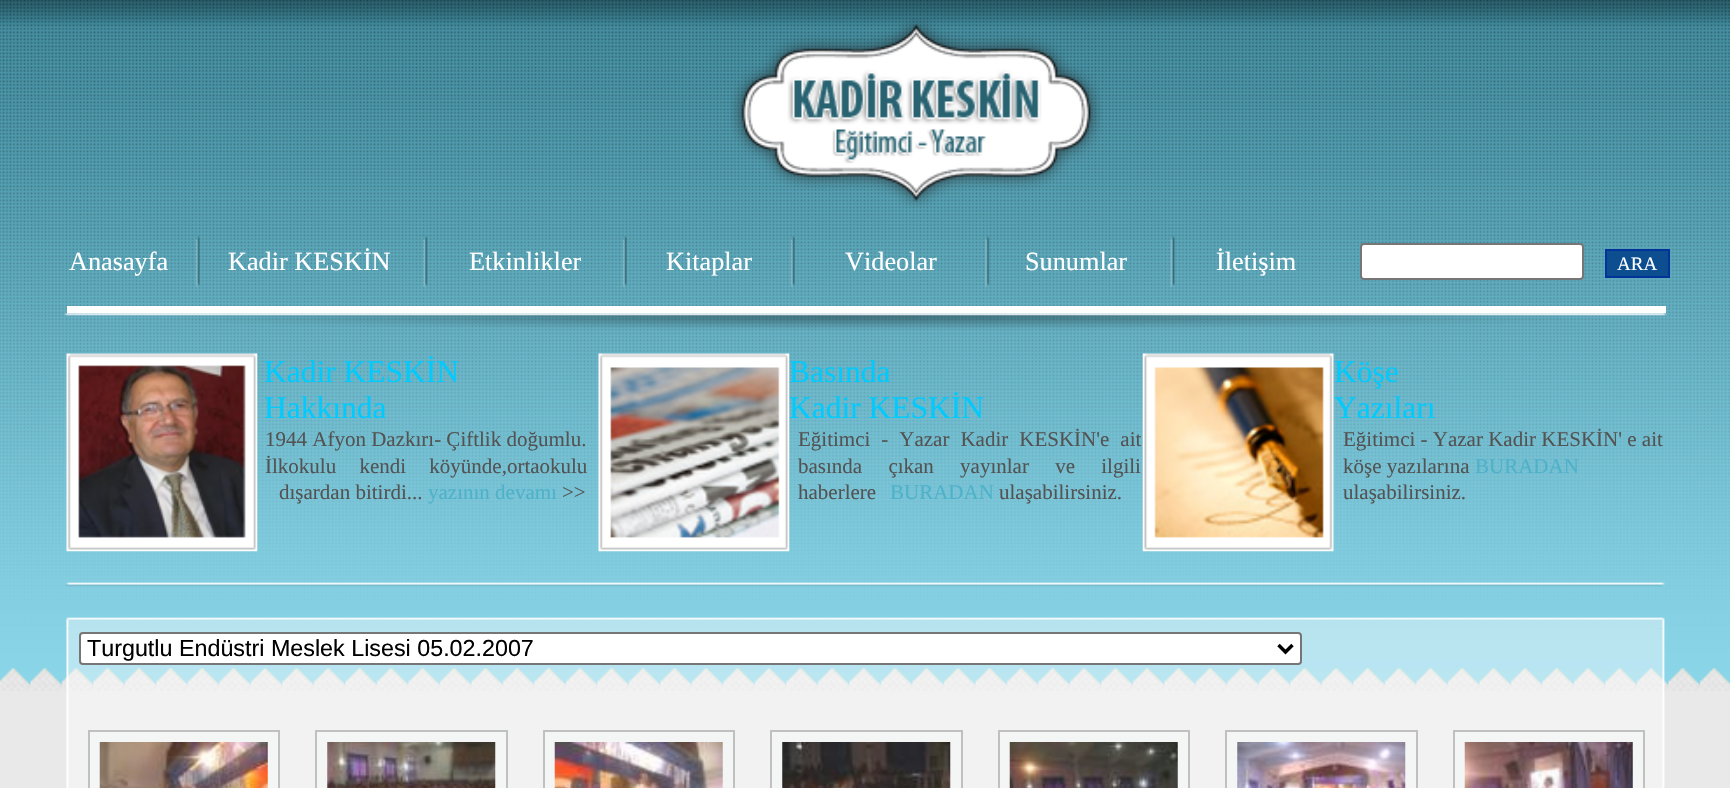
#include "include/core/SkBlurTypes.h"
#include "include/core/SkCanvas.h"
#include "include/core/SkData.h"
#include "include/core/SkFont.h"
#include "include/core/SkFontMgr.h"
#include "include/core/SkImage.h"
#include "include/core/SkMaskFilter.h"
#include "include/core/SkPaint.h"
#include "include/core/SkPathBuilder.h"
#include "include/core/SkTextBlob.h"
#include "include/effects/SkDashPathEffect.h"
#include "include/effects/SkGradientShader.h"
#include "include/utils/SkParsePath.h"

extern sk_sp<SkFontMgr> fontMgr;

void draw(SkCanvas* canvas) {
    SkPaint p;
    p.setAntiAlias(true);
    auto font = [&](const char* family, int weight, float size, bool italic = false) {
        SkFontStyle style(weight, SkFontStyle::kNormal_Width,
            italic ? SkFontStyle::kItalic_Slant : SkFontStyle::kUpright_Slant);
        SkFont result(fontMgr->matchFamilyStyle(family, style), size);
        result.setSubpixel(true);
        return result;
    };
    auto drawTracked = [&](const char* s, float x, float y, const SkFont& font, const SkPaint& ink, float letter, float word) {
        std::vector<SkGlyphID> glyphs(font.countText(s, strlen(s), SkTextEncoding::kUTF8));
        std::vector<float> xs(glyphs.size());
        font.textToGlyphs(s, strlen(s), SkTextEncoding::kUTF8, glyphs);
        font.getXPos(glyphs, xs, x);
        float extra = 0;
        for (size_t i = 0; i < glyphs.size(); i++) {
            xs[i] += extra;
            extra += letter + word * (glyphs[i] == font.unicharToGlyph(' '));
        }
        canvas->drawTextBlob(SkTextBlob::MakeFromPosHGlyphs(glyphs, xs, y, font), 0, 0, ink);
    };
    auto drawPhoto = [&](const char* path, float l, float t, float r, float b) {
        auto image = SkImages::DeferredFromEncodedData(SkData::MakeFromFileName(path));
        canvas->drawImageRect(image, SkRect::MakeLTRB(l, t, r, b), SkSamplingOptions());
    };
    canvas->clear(0xFFE9E9E9);
    drawPhoto("media/1.png", 0, 0, 1730, 691);
    drawPhoto("media/2.png", 730, 18, 1102, 208);
    auto font1 = font("Liberation Serif", 400, 26.25f);
    p.setColor(0xFFFFFFFF);
    canvas->drawString("Anasayfa", 69, 270, font1, p);
    drawPhoto("media/3.png", 195, 236, 200, 288);
    canvas->drawString("Kadir KESKİN", 228, 270, font1, p);
    drawPhoto("media/4.png", 423, 236, 428, 288);
    canvas->drawString("Etkinlikler", 469, 270, font1, p);
    drawPhoto("media/5.png", 622, 236, 627, 288);
    canvas->drawString("Kitaplar", 666, 270, font1, p);
    drawPhoto("media/5.png", 790, 236, 795, 288);
    canvas->drawString("Videolar", 845, 270, font1, p);
    drawPhoto("media/6.png", 985, 236, 990, 288);
    canvas->drawString("Sunumlar", 1025, 270, font1, p);
    drawPhoto("media/7.png", 1170, 236, 1175, 288);
    canvas->drawString("İletişim", 1216, 270, font1, p);
    canvas->drawRoundRect(SkRect::MakeLTRB(1361, 244, 1583, 279), 3, 3, p);
    p.setStyle(SkPaint::kStroke_Style);
    p.setStrokeWidth(2);
    p.setColor(0xFF767676);
    canvas->drawRoundRect(SkRect::MakeLTRB(1361, 244, 1583, 279), 3, 3, p);
    p.setStyle(SkPaint::kFill_Style);
    p.setColor(0xFF0C4E90);
    canvas->drawRect(SkRect::MakeLTRB(1606, 250, 1669, 277), p);
    p.setStyle(SkPaint::kStroke_Style);
    p.setColor(0xFF003399);
    canvas->drawRect(SkRect::MakeLTRB(1606, 250, 1669, 277), p);
    auto font2 = font("Liberation Serif", 400, 19);
    p.setStyle(SkPaint::kFill_Style);
    p.setColor(0xFFFFFFFF);
    canvas->drawString("ARA", 1617, 270, font2, p);
    p.setStyle(SkPaint::kStroke_Style);
    canvas->drawRect(SkRect::MakeLTRB(68, 307, 1665, 312), p);
    p.setStyle(SkPaint::kFill_Style);
    canvas->drawRect(SkRect::MakeLTRB(68, 308, 1664, 311), p);
    drawPhoto("media/8.png", 64, 313, 1667, 330);
    drawPhoto("media/9.png", 66, 353, 258, 552);
    auto font3 = font("Liberation Serif", 400, 31.5f);
    p.setColor(0xFF02CAFD);
    canvas->drawString("Kadir KESKİN", 264, 382, font3, p);
    canvas->drawString("Hakkında", 264, 418, font3, p);
    auto font4 = font("Liberation Serif", 400, 21);
    p.setColor(0xFF535353);
    canvas->drawString("1944 Afyon Dazkırı- Çiftlik doğumlu.", 265, 446, font4, p);
    drawTracked("İlkokulu kendi köyünde,ortaokulu", 265, 473, font4, p, 0, 18);
    canvas->drawString("dışardan bitirdi...", 279, 499, font4, p);
    p.setColor(0xFF4EB1CA);
    canvas->drawString("yazının devamı", 428, 499, font4, p);
    p.setColor(0xFF535353);
    canvas->drawString(">>", 562, 499, font4, p);
    drawPhoto("media/10.png", 598, 353, 790, 552);
    p.setColor(0xFF02CAFD);
    canvas->drawString("Basında", 789, 382, font3, p);
    canvas->drawString("Kadir KESKİN", 789, 418, font3, p);
    p.setColor(0xFF535353);
    drawTracked("Eğitimci - Yazar Kadir KESKİN'e ait", 798, 446, font4, p, 0, 5.75f);
    drawTracked("basında çıkan yayınlar ve ilgili", 798, 473, font4, p, 0, 21);
    canvas->drawString("haberlere", 798, 499, font4, p);
    p.setColor(0xFF4EB1CA);
    canvas->drawString("BURADAN", 890, 499, font4, p);
    p.setColor(0xFF535353);
    canvas->drawString("ulaşabilirsiniz.", 999, 499, font4, p);
    drawPhoto("media/11.png", 1142, 353, 1334, 552);
    p.setColor(0xFF02CAFD);
    canvas->drawString("Köşe", 1334, 382, font3, p);
    canvas->drawString("Yazıları", 1334, 418, font3, p);
    p.setColor(0xFF535353);
    canvas->drawString("Eğitimci - Yazar Kadir KESKİN' e ait", 1343, 446, font4, p);
    canvas->drawString("köşe yazılarına", 1343, 473, font4, p);
    p.setColor(0xFF4EB1CA);
    canvas->drawString("BURADAN", 1475, 473, font4, p);
    p.setColor(0xFF535353);
    canvas->drawString("ulaşabilirsiniz.", 1343, 499, font4, p);
    drawPhoto("media/12.png", 65, 582, 1665, 587);
    drawPhoto("media/13.png", 66, 617, 1665, 629);
    drawPhoto("media/14.png", 66, 628, 1665, 788);
    p.setColor(0xFFFFFFFF);
    canvas->drawRoundRect(SkRect::MakeLTRB(80, 633, 1301, 664), 3, 3, p);
    p.setStyle(SkPaint::kStroke_Style);
    p.setColor(0xFF767676);
    canvas->drawRoundRect(SkRect::MakeLTRB(80, 633, 1301, 664), 3, 3, p);
    p.setStrokeWidth(3.5f);
    p.setColor(0xFF000000);
    canvas->drawPath(SkPathBuilder().moveTo(1278.5f, 645).lineTo(1285.5f, 652).lineTo(1292.5f, 645).detach(), p);
    auto font5 = font("Liberation Sans", 400, 23.3f);
    p.setStyle(SkPaint::kFill_Style);
    canvas->drawString("Turgutlu Endüstri Meslek Lisesi 05.02.2007", 87, 656, font5, p);
    p.setColor(0xFFF4F5F5);
    canvas->drawRect(SkRect::MakeLTRB(89, 731, 279, 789), p);
    p.setStyle(SkPaint::kStroke_Style);
    p.setStrokeWidth(2);
    p.setColor(0xFFC0C0C0);
    canvas->drawRect(SkRect::MakeLTRB(89, 731, 279, 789), p);
    drawPhoto("media/15.png", 99, 742, 268, 788);
    p.setStyle(SkPaint::kFill_Style);
    p.setColor(0xFFF4F5F5);
    canvas->drawRect(SkRect::MakeLTRB(316, 731, 507, 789), p);
    p.setStyle(SkPaint::kStroke_Style);
    p.setColor(0xFFC0C0C0);
    canvas->drawRect(SkRect::MakeLTRB(316, 731, 507, 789), p);
    drawPhoto("media/16.png", 327, 742, 496, 788);
    p.setStyle(SkPaint::kFill_Style);
    p.setColor(0xFFF4F5F5);
    canvas->drawRect(SkRect::MakeLTRB(544, 731, 734, 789), p);
    p.setStyle(SkPaint::kStroke_Style);
    p.setColor(0xFFC0C0C0);
    canvas->drawRect(SkRect::MakeLTRB(544, 731, 734, 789), p);
    drawPhoto("media/17.png", 554, 742, 723, 788);
    p.setStyle(SkPaint::kFill_Style);
    p.setColor(0xFFF4F5F5);
    canvas->drawRect(SkRect::MakeLTRB(771, 731, 962, 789), p);
    p.setStyle(SkPaint::kStroke_Style);
    p.setColor(0xFFC0C0C0);
    canvas->drawRect(SkRect::MakeLTRB(771, 731, 962, 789), p);
    drawPhoto("media/18.png", 782, 742, 951, 788);
    p.setStyle(SkPaint::kFill_Style);
    p.setColor(0xFFF4F5F5);
    canvas->drawRect(SkRect::MakeLTRB(999, 731, 1189, 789), p);
    p.setStyle(SkPaint::kStroke_Style);
    p.setColor(0xFFC0C0C0);
    canvas->drawRect(SkRect::MakeLTRB(999, 731, 1189, 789), p);
    drawPhoto("media/19.png", 1009, 742, 1178, 788);
    p.setStyle(SkPaint::kFill_Style);
    p.setColor(0xFFF4F5F5);
    canvas->drawRect(SkRect::MakeLTRB(1226, 731, 1417, 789), p);
    p.setStyle(SkPaint::kStroke_Style);
    p.setColor(0xFFC0C0C0);
    canvas->drawRect(SkRect::MakeLTRB(1226, 731, 1417, 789), p);
    drawPhoto("media/20.png", 1237, 742, 1406, 788);
    p.setStyle(SkPaint::kFill_Style);
    p.setColor(0xFFF4F5F5);
    canvas->drawRect(SkRect::MakeLTRB(1454, 731, 1644, 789), p);
    p.setStyle(SkPaint::kStroke_Style);
    p.setColor(0xFFC0C0C0);
    canvas->drawRect(SkRect::MakeLTRB(1454, 731, 1644, 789), p);
    drawPhoto("media/21.png", 1464, 742, 1633, 788);
}
